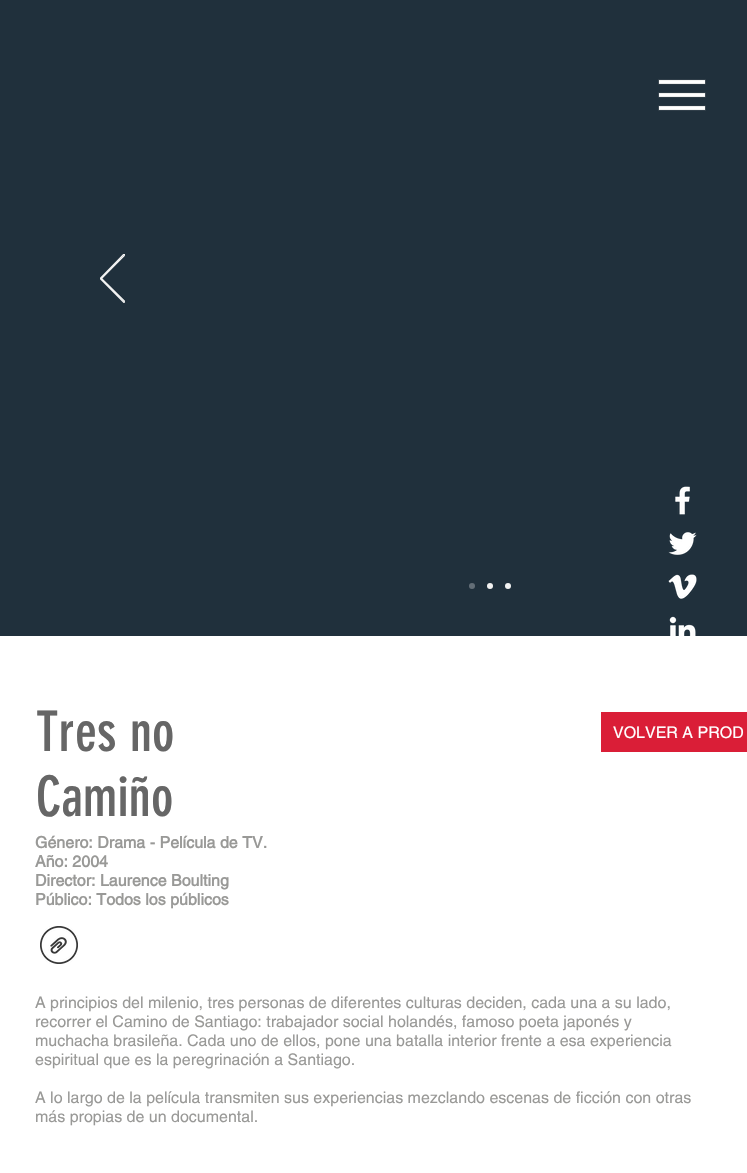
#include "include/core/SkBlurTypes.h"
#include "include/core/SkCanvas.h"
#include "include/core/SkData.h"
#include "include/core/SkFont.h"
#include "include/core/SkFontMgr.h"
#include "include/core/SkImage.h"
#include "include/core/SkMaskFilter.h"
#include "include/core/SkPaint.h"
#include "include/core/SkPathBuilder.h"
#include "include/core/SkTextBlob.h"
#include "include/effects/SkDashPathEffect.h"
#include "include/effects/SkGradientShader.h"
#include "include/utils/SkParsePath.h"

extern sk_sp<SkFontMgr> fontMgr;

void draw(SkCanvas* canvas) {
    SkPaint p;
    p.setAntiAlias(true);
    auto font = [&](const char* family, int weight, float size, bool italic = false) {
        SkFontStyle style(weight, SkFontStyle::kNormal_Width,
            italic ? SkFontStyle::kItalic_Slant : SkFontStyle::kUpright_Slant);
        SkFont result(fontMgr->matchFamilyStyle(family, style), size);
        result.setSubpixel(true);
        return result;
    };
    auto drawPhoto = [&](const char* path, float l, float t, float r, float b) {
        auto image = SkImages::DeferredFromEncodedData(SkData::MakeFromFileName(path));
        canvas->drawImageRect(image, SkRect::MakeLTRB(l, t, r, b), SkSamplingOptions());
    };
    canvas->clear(0xFF20303C);
    drawPhoto("media/1.png", 675, 486, 690, 515);
    drawPhoto("media/2.png", 668, 532, 697, 555);
    drawPhoto("media/3.png", 668, 574, 697, 599);
    drawPhoto("media/4.png", 669, 616, 696, 636);
    drawPhoto("media/5.png", 658, 79, 706, 111);
    canvas->save();
    canvas->clipRect(SkRect::MakeLTRB(100, 254, 125, 303));
    p.setStyle(SkPaint::kStroke_Style);
    p.setStrokeWidth(1.2f);
    p.setColor(0xFFF2F2F2);
    canvas->drawPath(SkPathBuilder().moveTo(124, 302.5f).lineTo(100, 278.5f).lineTo(124, 254).lineTo(125, 255).lineTo(101.5f, 278.5f).lineTo(125, 301.5f).close().detach(), p);
    canvas->restore();
    p.setStyle(SkPaint::kFill_Style);
    p.setColor(0xFF636E77);
    canvas->drawCircle(472, 586, 3, p);
    p.setColor(0xFFF2F2F2);
    canvas->drawCircle(490, 586, 3, p);
    canvas->drawCircle(508, 586, 3, p);
    p.setColor(0xFFFFFFFF);
    canvas->drawRect(SkRect::MakeLTRB(0, 636, 747, 1173), p);
    auto font1 = font("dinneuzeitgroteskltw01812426", 400, 55);
    p.setColor(0xFF666666);
    canvas->drawString("Tres no", 36, 751, font1, p);
    canvas->drawString("Camiño", 36, 816, font1, p);
    p.setColor(0xFFDA1E37);
    canvas->drawRect(SkRect::MakeLTRB(601, 712, 747, 752), p);
    auto font2 = font("helvetica", 400, 16);
    p.setColor(0xFFFFFFFF);
    canvas->drawString("VOLVER A PROD", 613, 738, font2, p);
    auto font3 = font("helvetica", 700, 16);
    p.setColor(0xFF999997);
    {
        const struct { const char* s; float x, y; } items[] = {
            {"Género: Drama - Película de TV.", 35, 848},
            {"Año: 2004", 35, 867},
            {"Director: Laurence Boulting", 35, 886},
            {"Público: Todos los públicos", 35, 905},
        };
        for (auto [s, x, y] : items) {
            canvas->drawString(s, x, y, font3, p);
        }
    }
    drawPhoto("media/6.png", 40, 926, 78, 964);
    {
        const struct { const char* s; float x, y; } items[] = {
            {"A principios del milenio, tres personas de diferentes culturas deciden, cada una a su lado,", 35, 1008},
            {"recorrer el Camino de Santiago: trabajador social holandés, famoso poeta japonés y", 35, 1027},
            {"muchacha brasileña. Cada uno de ellos, pone una batalla interior frente a esa experiencia", 35, 1046},
            {"espiritual que es la peregrinación a Santiago.", 35, 1065},
            {"A lo largo de la película transmiten sus experiencias mezclando escenas de ficción con otras", 35, 1103},
            {"más propias de un documental.", 35, 1122},
        };
        for (auto [s, x, y] : items) {
            canvas->drawString(s, x, y, font2, p);
        }
    }
}
